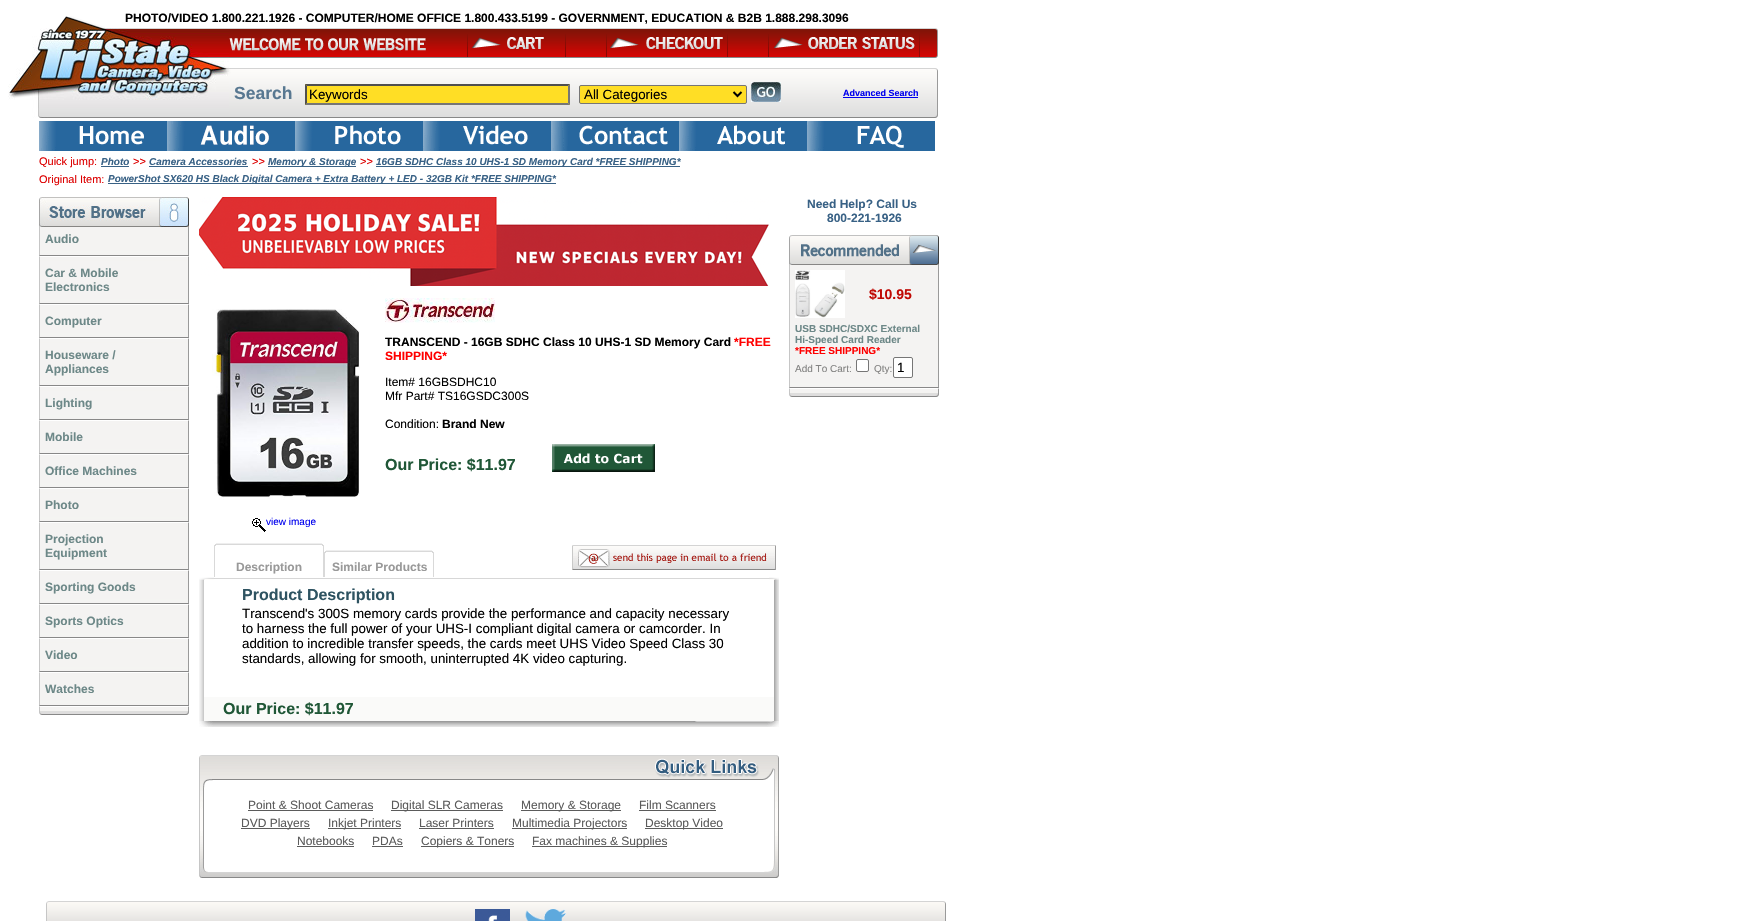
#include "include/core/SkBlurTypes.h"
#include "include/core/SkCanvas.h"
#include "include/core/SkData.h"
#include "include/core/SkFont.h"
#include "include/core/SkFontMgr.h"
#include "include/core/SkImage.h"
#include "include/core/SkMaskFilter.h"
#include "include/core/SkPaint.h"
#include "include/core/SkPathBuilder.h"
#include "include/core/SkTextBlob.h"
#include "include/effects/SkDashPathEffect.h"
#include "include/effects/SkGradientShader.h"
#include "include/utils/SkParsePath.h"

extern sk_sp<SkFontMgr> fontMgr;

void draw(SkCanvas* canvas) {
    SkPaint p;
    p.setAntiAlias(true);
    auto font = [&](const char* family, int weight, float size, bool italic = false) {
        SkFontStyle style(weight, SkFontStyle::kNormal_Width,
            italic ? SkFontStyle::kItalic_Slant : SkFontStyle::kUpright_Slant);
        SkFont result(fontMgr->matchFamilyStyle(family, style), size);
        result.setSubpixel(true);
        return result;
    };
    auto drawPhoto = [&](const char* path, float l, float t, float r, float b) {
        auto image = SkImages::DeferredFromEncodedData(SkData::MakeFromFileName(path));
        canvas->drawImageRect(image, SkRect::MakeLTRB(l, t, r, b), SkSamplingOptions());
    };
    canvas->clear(0xFFFFFFFF);
    drawPhoto("media/1.png", 57, 16, 105, 28);
    auto font1 = font("Liberation Sans", 700, 12);
    p.setColor(0xFF000000);
    canvas->drawString("PHOTO/VIDEO 1.800.221.1926 - COMPUTER/HOME OFFICE 1.800.433.5199 - GOVERNMENT, EDUCATION & B2B 1.888.298.3096", 125, 22, font1, p);
    drawPhoto("media/2.png", 8, 28, 229, 118);
    drawPhoto("media/3.png", 229, 28, 938, 58);
    drawPhoto("media/4.png", 467, 34, 566, 57);
    drawPhoto("media/5.png", 606, 34, 728, 57);
    drawPhoto("media/6.png", 768, 34, 920, 57);
    drawPhoto("media/7.png", 229, 68, 938, 118);
    auto font2 = font("Liberation Sans", 700, 17.5f);
    p.setColor(0xFF587891);
    canvas->drawString("Search", 234, 99, font2, p);
    p.setColor(0xFFFFDE25);
    canvas->drawRect(SkRect::MakeLTRB(305, 84, 570, 105), p);
    p.setColor(0xFF4F4F4F);
    canvas->drawPath(SkPathBuilder().moveTo(305, 84).lineTo(570, 84).lineTo(568, 86).lineTo(307, 86).close().detach(), p);
    p.setColor(0xFF767676);
    canvas->drawPath(SkPathBuilder().moveTo(570, 84).lineTo(570, 105).lineTo(568, 103).lineTo(568, 86).close().detach(), p);
    canvas->drawPath(SkPathBuilder().moveTo(570, 105).lineTo(305, 105).lineTo(307, 103).lineTo(568, 103).close().detach(), p);
    p.setColor(0xFF4F4F4F);
    canvas->drawPath(SkPathBuilder().moveTo(305, 105).lineTo(305, 84).lineTo(307, 86).lineTo(307, 103).close().detach(), p);
    auto font3 = font("Liberation Sans", 400, 13.35f);
    p.setColor(0xFF000000);
    canvas->drawString("Keywords", 309, 99, font3, p);
    p.setColor(0xFFFFDE25);
    canvas->drawRoundRect(SkRect::MakeLTRB(579.5f, 85.5f, 746.5f, 103.5f), 1.5f, 1.5f, p);
    p.setStyle(SkPaint::kStroke_Style);
    p.setStrokeWidth(1);
    p.setColor(0xFF767676);
    canvas->drawRoundRect(SkRect::MakeLTRB(579.5f, 85.5f, 746.5f, 103.5f), 1.5f, 1.5f, p);
    p.setStrokeWidth(2);
    p.setColor(0xFF000000);
    canvas->drawPath(SkPathBuilder().moveTo(733.5f, 92).lineTo(737.5f, 96).lineTo(741.5f, 92).detach(), p);
    p.setStyle(SkPaint::kFill_Style);
    canvas->drawString("All Categories", 584, 99, font3, p);
    drawPhoto("media/8.png", 751, 82, 781, 102);
    auto font4 = font("Liberation Sans", 700, 9);
    p.setColor(0xFF0000EE);
    canvas->drawString("Advanced Search", 843, 96, font4, p);
    canvas->drawRect(SkRect::MakeLTRB(843, 97, 918, 98), p);
    drawPhoto("media/9.png", 39, 121, 167, 151);
    drawPhoto("media/10.png", 167, 121, 295, 151);
    drawPhoto("media/11.png", 295, 121, 423, 151);
    drawPhoto("media/12.png", 423, 121, 551, 151);
    drawPhoto("media/13.png", 551, 121, 679, 151);
    drawPhoto("media/14.png", 679, 121, 807, 151);
    drawPhoto("media/15.png", 807, 121, 935, 151);
    auto font5 = font("Liberation Sans", 400, 11);
    p.setColor(0xFFDD0000);
    canvas->drawString("Quick jump:", 39, 165, font5, p);
    auto font6 = font("Liberation Sans", 700, 10, true);
    p.setColor(0xFF386185);
    canvas->drawString("Photo", 101, 165, font6, p);
    canvas->drawRect(SkRect::MakeLTRB(101, 166, 129, 167), p);
    p.setColor(0xFFDD0000);
    canvas->drawString(">>", 133, 165, font5, p);
    p.setColor(0xFF386185);
    canvas->drawString("Camera Accessories", 149, 165, font6, p);
    canvas->drawRect(SkRect::MakeLTRB(149, 166, 248, 167), p);
    p.setColor(0xFFDD0000);
    canvas->drawString(">>", 252, 165, font5, p);
    p.setColor(0xFF386185);
    canvas->drawRect(SkRect::MakeLTRB(268, 166, 356, 167), p);
    canvas->drawString("Memory & Storage", 268, 165, font6, p);
    p.setColor(0xFFDD0000);
    canvas->drawString(">>", 360, 165, font5, p);
    p.setColor(0xFF386185);
    canvas->drawRect(SkRect::MakeLTRB(376, 166, 680, 167), p);
    canvas->drawString("16GB SDHC Class 10 UHS-1 SD Memory Card *FREE SHIPPING*", 376, 165, font6, p);
    p.setColor(0xFFDD0000);
    canvas->drawString("Original Item:", 39, 183, font5, p);
    p.setColor(0xFF386185);
    canvas->drawRect(SkRect::MakeLTRB(108, 183, 556, 184), p);
    canvas->drawString("PowerShot SX620 HS Black Digital Camera + Extra Battery + LED - 32GB Kit *FREE SHIPPING*", 108, 182, font6, p);
    p.setColor(0xFFF4F3F2);
    canvas->drawRect(SkRect::MakeLTRB(40, 227, 188, 701), p);
    drawPhoto("media/16.png", 39, 197, 189, 227);
    p.setColor(0xFFC6C6C6);
    canvas->drawRect(SkRect::MakeLTRB(39, 227, 40, 251), p);
    p.setColor(0xFF6D8888);
    canvas->drawString("Audio", 45, 243, font1, p);
    p.setColor(0xFF9A9A9A);
    canvas->drawRect(SkRect::MakeLTRB(188, 227, 189, 251), p);
    drawPhoto("media/17.png", 39, 251, 189, 261);
    p.setColor(0xFFC6C6C6);
    canvas->drawRect(SkRect::MakeLTRB(39, 261, 40, 299), p);
    p.setColor(0xFF6D8888);
    canvas->drawString("Car & Mobile", 45, 277, font1, p);
    canvas->drawString("Electronics", 45, 291, font1, p);
    p.setColor(0xFF9A9A9A);
    canvas->drawRect(SkRect::MakeLTRB(188, 261, 189, 299), p);
    drawPhoto("media/17.png", 39, 299, 189, 309);
    p.setColor(0xFFC6C6C6);
    canvas->drawRect(SkRect::MakeLTRB(39, 309, 40, 333), p);
    p.setColor(0xFF6D8888);
    canvas->drawString("Computer", 45, 325, font1, p);
    p.setColor(0xFF9A9A9A);
    canvas->drawRect(SkRect::MakeLTRB(188, 309, 189, 333), p);
    drawPhoto("media/17.png", 39, 333, 189, 343);
    p.setColor(0xFFC6C6C6);
    canvas->drawRect(SkRect::MakeLTRB(39, 343, 40, 381), p);
    p.setColor(0xFF6D8888);
    canvas->drawString("Houseware /", 45, 359, font1, p);
    canvas->drawString("Appliances", 45, 373, font1, p);
    p.setColor(0xFF9A9A9A);
    canvas->drawRect(SkRect::MakeLTRB(188, 343, 189, 381), p);
    drawPhoto("media/17.png", 39, 381, 189, 391);
    p.setColor(0xFFC6C6C6);
    canvas->drawRect(SkRect::MakeLTRB(39, 391, 40, 415), p);
    p.setColor(0xFF6D8888);
    canvas->drawString("Lighting", 45, 407, font1, p);
    p.setColor(0xFF9A9A9A);
    canvas->drawRect(SkRect::MakeLTRB(188, 391, 189, 415), p);
    drawPhoto("media/17.png", 39, 415, 189, 425);
    p.setColor(0xFFC6C6C6);
    canvas->drawRect(SkRect::MakeLTRB(39, 425, 40, 449), p);
    p.setColor(0xFF6D8888);
    canvas->drawString("Mobile", 45, 441, font1, p);
    p.setColor(0xFF9A9A9A);
    canvas->drawRect(SkRect::MakeLTRB(188, 425, 189, 449), p);
    drawPhoto("media/17.png", 39, 449, 189, 459);
    p.setColor(0xFFC6C6C6);
    canvas->drawRect(SkRect::MakeLTRB(39, 459, 40, 483), p);
    p.setColor(0xFF6D8888);
    canvas->drawString("Office Machines", 45, 475, font1, p);
    p.setColor(0xFF9A9A9A);
    canvas->drawRect(SkRect::MakeLTRB(188, 459, 189, 483), p);
    drawPhoto("media/17.png", 39, 483, 189, 493);
    p.setColor(0xFFC6C6C6);
    canvas->drawRect(SkRect::MakeLTRB(39, 493, 40, 517), p);
    p.setColor(0xFF6D8888);
    canvas->drawString("Photo", 45, 509, font1, p);
    p.setColor(0xFF9A9A9A);
    canvas->drawRect(SkRect::MakeLTRB(188, 493, 189, 517), p);
    drawPhoto("media/17.png", 39, 517, 189, 527);
    p.setColor(0xFFC6C6C6);
    canvas->drawRect(SkRect::MakeLTRB(39, 527, 40, 565), p);
    p.setColor(0xFF6D8888);
    canvas->drawString("Projection", 45, 543, font1, p);
    canvas->drawString("Equipment", 45, 557, font1, p);
    p.setColor(0xFF9A9A9A);
    canvas->drawRect(SkRect::MakeLTRB(188, 527, 189, 565), p);
    drawPhoto("media/17.png", 39, 565, 189, 575);
    p.setColor(0xFFC6C6C6);
    canvas->drawRect(SkRect::MakeLTRB(39, 575, 40, 599), p);
    p.setColor(0xFF6D8888);
    canvas->drawString("Sporting Goods", 45, 591, font1, p);
    p.setColor(0xFF9A9A9A);
    canvas->drawRect(SkRect::MakeLTRB(188, 575, 189, 599), p);
    drawPhoto("media/17.png", 39, 599, 189, 609);
    p.setColor(0xFFC6C6C6);
    canvas->drawRect(SkRect::MakeLTRB(39, 609, 40, 633), p);
    p.setColor(0xFF6D8888);
    canvas->drawString("Sports Optics", 45, 625, font1, p);
    p.setColor(0xFF9A9A9A);
    canvas->drawRect(SkRect::MakeLTRB(188, 609, 189, 633), p);
    drawPhoto("media/17.png", 39, 633, 189, 643);
    p.setColor(0xFFC6C6C6);
    canvas->drawRect(SkRect::MakeLTRB(39, 643, 40, 667), p);
    p.setColor(0xFF6D8888);
    canvas->drawString("Video", 45, 659, font1, p);
    p.setColor(0xFF9A9A9A);
    canvas->drawRect(SkRect::MakeLTRB(188, 643, 189, 667), p);
    drawPhoto("media/17.png", 39, 667, 189, 677);
    p.setColor(0xFFC6C6C6);
    canvas->drawRect(SkRect::MakeLTRB(39, 677, 40, 701), p);
    p.setColor(0xFF6D8888);
    canvas->drawString("Watches", 45, 693, font1, p);
    p.setColor(0xFF9A9A9A);
    canvas->drawRect(SkRect::MakeLTRB(188, 677, 189, 701), p);
    drawPhoto("media/17.png", 39, 701, 189, 711);
    drawPhoto("media/18.png", 39, 711, 189, 715);
    drawPhoto("media/19.png", 199, 197, 769, 286);
    drawPhoto("media/20.png", 385, 298, 495, 323);
    p.setColor(0xFF000000);
    canvas->drawString("TRANSCEND - 16GB SDHC Class 10 UHS-1 SD Memory Card", 385, 346, font1, p);
    p.setColor(0xFFFF0000);
    canvas->drawString("*FREE", 734, 346, font1, p);
    canvas->drawString("SHIPPING*", 385, 360, font1, p);
    auto font7 = font("Liberation Sans", 400, 12);
    p.setColor(0xFF000000);
    {
        const struct { const char* s; float x, y; } items[] = {
            {"Item# 16GBSDHC10", 385, 386},
            {"Mfr Part# TS16GSDC300S", 385, 400},
            {"Condition:", 385, 428},
        };
        for (auto [s, x, y] : items) {
            canvas->drawString(s, x, y, font7, p);
        }
    }
    canvas->drawString("Brand New", 442, 428, font1, p);
    auto font8 = font("Liberation Sans", 700, 16);
    p.setColor(0xFF205737);
    canvas->drawString("Our Price: $11.97", 385, 470, font8, p);
    drawPhoto("media/21.png", 552, 444, 655, 472);
    drawPhoto("media/22.png", 212, 309, 360, 500);
    drawPhoto("media/23.png", 252, 518, 266, 532);
    auto font9 = font("Liberation Sans", 400, 10);
    p.setColor(0xFF0000EE);
    canvas->drawString("view image", 266, 525, font9, p);
    drawPhoto("media/24.png", 214, 543, 324, 577);
    p.setColor(0xFF999999);
    canvas->drawString("Description", 236, 571, font1, p);
    drawPhoto("media/25.png", 324, 550, 434, 577);
    canvas->drawString("Similar Products", 332, 571, font1, p);
    drawPhoto("media/26.png", 572, 545, 776, 570);
    drawPhoto("media/27.png", 199, 577, 214, 580);
    p.setColor(0xFFD7D7D7);
    canvas->drawRect(SkRect::MakeLTRB(214, 578, 769, 579), p);
    drawPhoto("media/28.png", 769, 577, 779, 580);
    drawPhoto("media/29.png", 199, 580, 204, 721);
    p.setColor(0xFF2E5361);
    canvas->drawString("Product Description", 242, 600, font8, p);
    p.setColor(0xFF000000);
    {
        const struct { const char* s; float x, y; } items[] = {
            {"Transcend's 300S memory cards provide the performance and capacity necessary", 242, 618},
            {"to harness the full power of your UHS-I compliant digital camera or camcorder. In", 242, 633},
            {"addition to incredible transfer speeds, the cards meet UHS Video Speed Class 30", 242, 648},
            {"standards, allowing for smooth, uninterrupted 4K video capturing.", 242, 663},
        };
        for (auto [s, x, y] : items) {
            canvas->drawString(s, x, y, font3, p);
        }
    }
    p.setColor(0xFFFAFAF9);
    canvas->drawRect(SkRect::MakeLTRB(204, 697, 774, 721), p);
    p.setColor(0xFF205737);
    canvas->drawString("Our Price: $11.97", 223, 714, font8, p);
    drawPhoto("media/30.png", 774, 580, 779, 721);
    drawPhoto("media/31.png", 199, 721, 779, 727);
    drawPhoto("media/32.png", 199, 755, 779, 878);
    p.setColor(0xFF5B5B5B);
    canvas->drawString("Point & Shoot Cameras", 248, 809, font7, p);
    canvas->drawRect(SkRect::MakeLTRB(248, 810, 373, 811), p);
    canvas->drawRect(SkRect::MakeLTRB(391, 810, 503, 811), p);
    canvas->drawString("Digital SLR Cameras", 391, 809, font7, p);
    canvas->drawRect(SkRect::MakeLTRB(521, 810, 621, 811), p);
    canvas->drawString("Memory & Storage", 521, 809, font7, p);
    canvas->drawString("Film Scanners", 639, 809, font7, p);
    canvas->drawRect(SkRect::MakeLTRB(639, 810, 716, 811), p);
    canvas->drawRect(SkRect::MakeLTRB(241, 828, 310, 829), p);
    canvas->drawString("DVD Players", 241, 827, font7, p);
    canvas->drawRect(SkRect::MakeLTRB(328, 828, 401, 829), p);
    canvas->drawString("Inkjet Printers", 328, 827, font7, p);
    canvas->drawString("Laser Printers", 419, 827, font7, p);
    canvas->drawRect(SkRect::MakeLTRB(419, 828, 494, 829), p);
    canvas->drawRect(SkRect::MakeLTRB(512, 828, 627, 829), p);
    canvas->drawString("Multimedia Projectors", 512, 827, font7, p);
    canvas->drawRect(SkRect::MakeLTRB(645, 828, 723, 829), p);
    canvas->drawString("Desktop Video", 645, 827, font7, p);
    canvas->drawString("Notebooks", 297, 845, font7, p);
    canvas->drawRect(SkRect::MakeLTRB(297, 846, 354, 847), p);
    canvas->drawString("PDAs", 372, 845, font7, p);
    canvas->drawRect(SkRect::MakeLTRB(372, 846, 403, 847), p);
    canvas->drawRect(SkRect::MakeLTRB(421, 846, 514, 847), p);
    canvas->drawString("Copiers & Toners", 421, 845, font7, p);
    canvas->drawRect(SkRect::MakeLTRB(532, 846, 667, 847), p);
    canvas->drawString("Fax machines & Supplies", 532, 845, font7, p);
    p.setColor(0xFF386185);
    canvas->drawString("Need Help? Call Us", 807, 208, font1, p);
    canvas->drawString("800-221-1926", 827, 222, font1, p);
    p.setColor(0xFFF4F3F2);
    canvas->drawRect(SkRect::MakeLTRB(790, 265, 938, 383), p);
    drawPhoto("media/33.png", 789, 235, 939, 265);
    p.setColor(0xFFC6C6C6);
    canvas->drawRect(SkRect::MakeLTRB(789, 265, 790, 383), p);
    drawPhoto("media/34.png", 795, 270, 845, 318);
    auto font10 = font("Liberation Sans", 700, 14);
    p.setColor(0xFFC00904);
    canvas->drawString("$10.95", 869, 299, font10, p);
    auto font11 = font("Liberation Sans", 700, 10);
    p.setColor(0xFF6D8888);
    canvas->drawString("USB SDHC/SDXC External", 795, 332, font11, p);
    canvas->drawString("Hi-Speed Card Reader", 795, 343, font11, p);
    p.setColor(0xFFFF0000);
    canvas->drawString("*FREE SHIPPING*", 795, 354, font11, p);
    p.setColor(0xFF838382);
    canvas->drawString("Add To Cart:", 795, 372, font9, p);
    p.setColor(0xFFFFFFFF);
    canvas->drawRoundRect(SkRect::MakeLTRB(856.5f, 359.5f, 868.5f, 371.5f), 1.5f, 1.5f, p);
    p.setStyle(SkPaint::kStroke_Style);
    p.setStrokeWidth(1);
    p.setColor(0xFF767676);
    canvas->drawRoundRect(SkRect::MakeLTRB(856.5f, 359.5f, 868.5f, 371.5f), 1.5f, 1.5f, p);
    p.setStyle(SkPaint::kFill_Style);
    p.setColor(0xFF838382);
    canvas->drawString("Qty:", 874, 372, font9, p);
    p.setColor(0xFFFFFFFF);
    canvas->drawRoundRect(SkRect::MakeLTRB(893.5f, 357.5f, 912.5f, 377.5f), 1.5f, 1.5f, p);
    p.setStyle(SkPaint::kStroke_Style);
    p.setColor(0xFF767676);
    canvas->drawRoundRect(SkRect::MakeLTRB(893.5f, 357.5f, 912.5f, 377.5f), 1.5f, 1.5f, p);
    p.setStyle(SkPaint::kFill_Style);
    p.setColor(0xFF000000);
    canvas->drawString("1", 897, 372, font3, p);
    p.setColor(0xFF9A9A9A);
    canvas->drawRect(SkRect::MakeLTRB(938, 265, 939, 383), p);
    drawPhoto("media/17.png", 789, 383, 939, 393);
    drawPhoto("media/18.png", 789, 393, 939, 397);
    drawPhoto("media/35.png", 46, 901, 946, 921);
    drawPhoto("media/36.png", 475, 909, 510, 921);
    drawPhoto("media/37.png", 525, 909, 566, 921);
}
